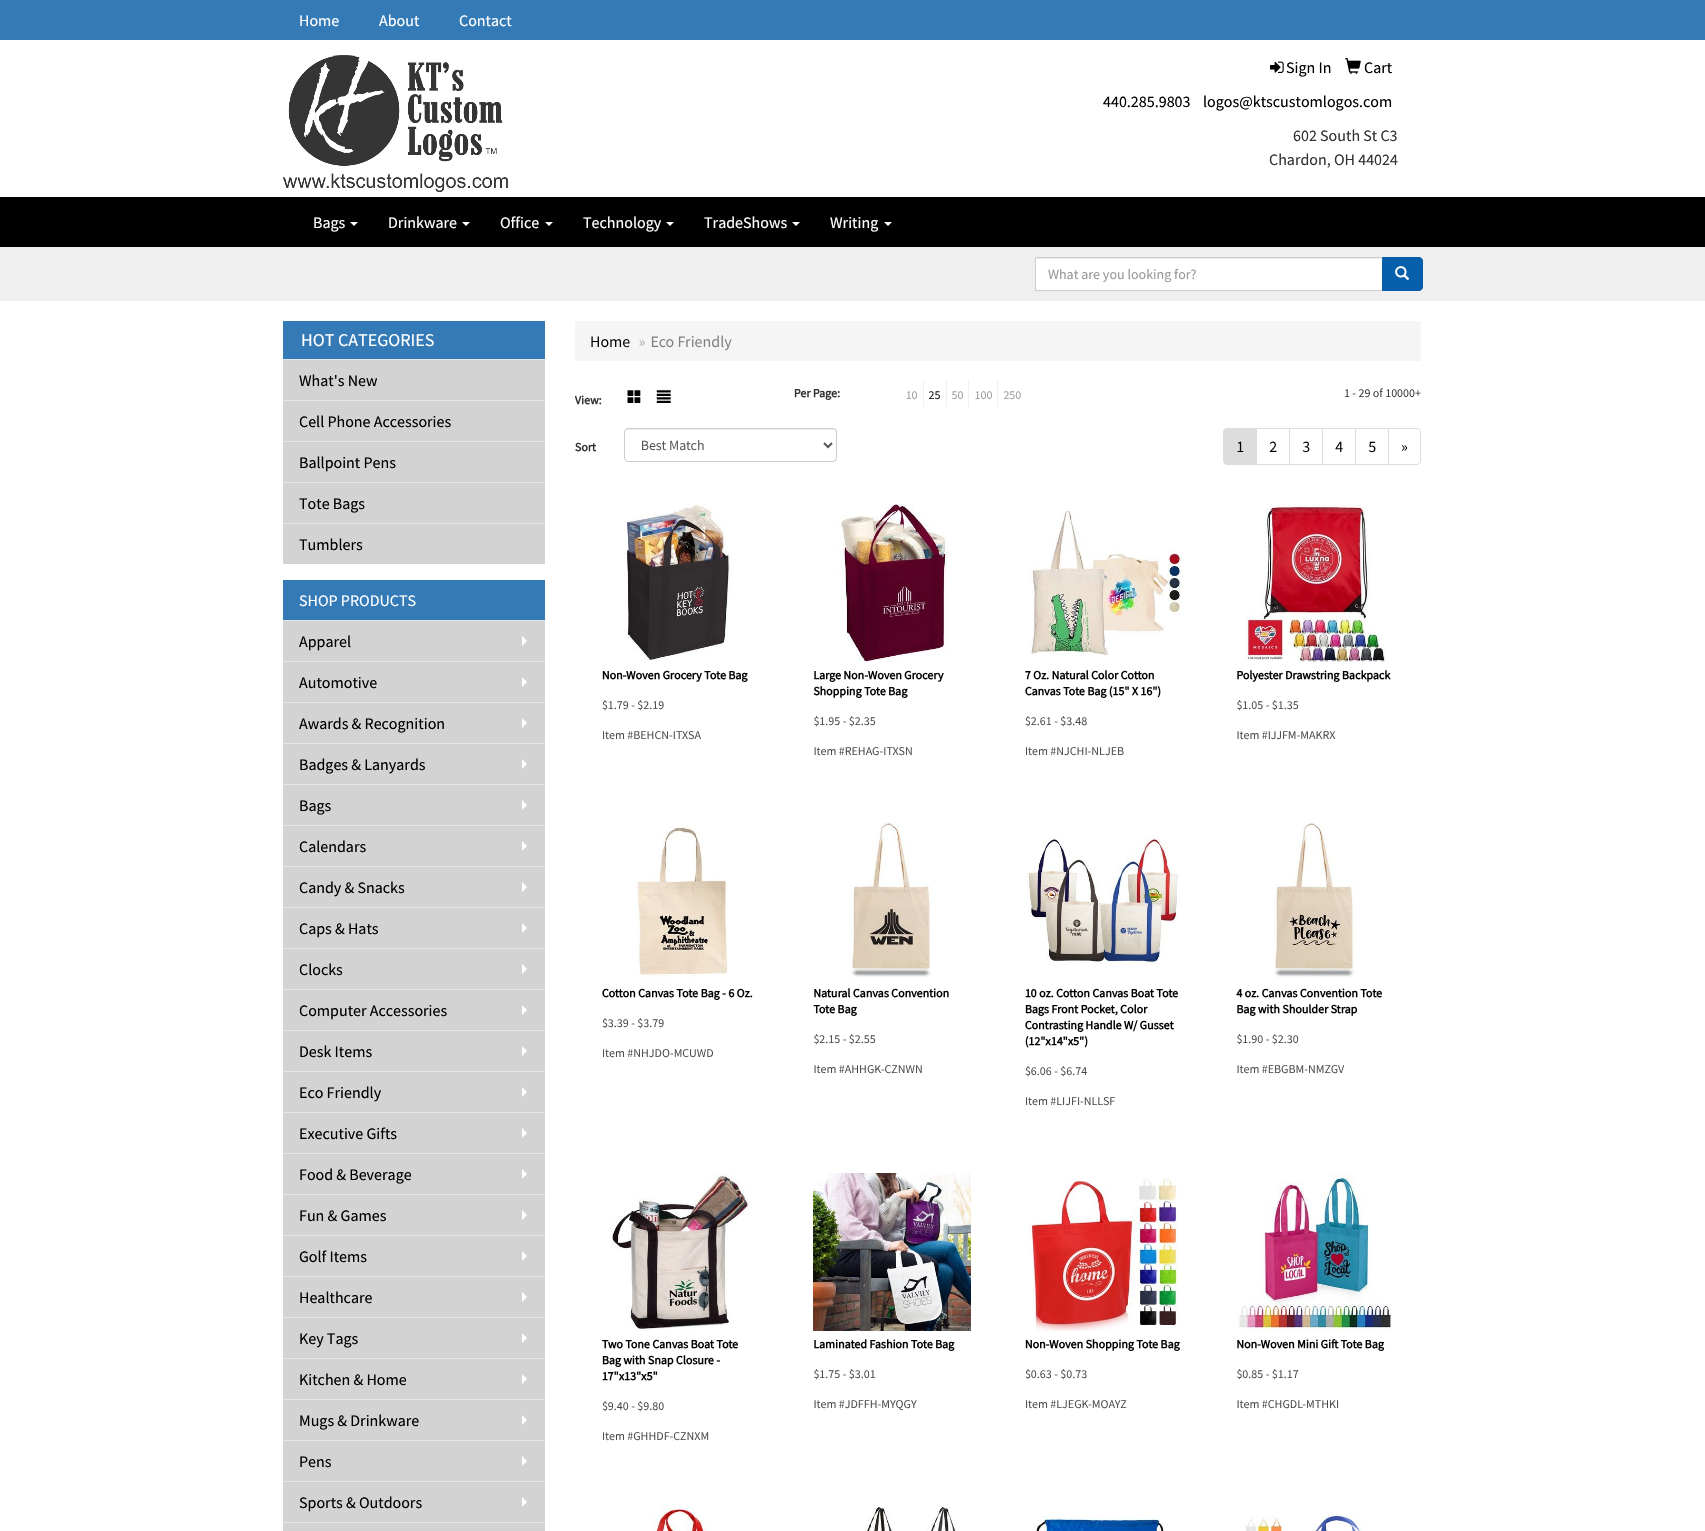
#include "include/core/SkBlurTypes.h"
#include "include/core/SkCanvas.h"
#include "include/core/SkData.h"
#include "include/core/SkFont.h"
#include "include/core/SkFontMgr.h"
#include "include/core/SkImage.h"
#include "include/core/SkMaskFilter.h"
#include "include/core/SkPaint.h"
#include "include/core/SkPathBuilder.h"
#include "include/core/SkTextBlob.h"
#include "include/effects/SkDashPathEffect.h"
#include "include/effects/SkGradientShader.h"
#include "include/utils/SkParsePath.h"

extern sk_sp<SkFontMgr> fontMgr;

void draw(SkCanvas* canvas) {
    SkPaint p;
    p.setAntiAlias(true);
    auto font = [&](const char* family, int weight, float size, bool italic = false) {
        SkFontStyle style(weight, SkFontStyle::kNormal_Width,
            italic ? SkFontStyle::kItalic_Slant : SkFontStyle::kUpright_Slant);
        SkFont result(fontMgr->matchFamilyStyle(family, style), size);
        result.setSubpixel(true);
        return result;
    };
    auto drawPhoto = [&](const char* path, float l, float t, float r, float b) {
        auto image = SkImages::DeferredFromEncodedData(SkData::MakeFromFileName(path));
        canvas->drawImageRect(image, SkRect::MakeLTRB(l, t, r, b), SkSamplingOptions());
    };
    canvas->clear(0xFFFFFFFF);
    p.setColor(0xFF337AB7);
    canvas->drawRect(SkRect::MakeLTRB(0, 0, 1705, 40), p);
    auto font1 = font("Source Sans Pro", 400, 16);
    p.setColor(0xFFFFFFFF);
    {
        const struct { const char* s; float x, y; } items[] = {
            {"Home", 299, 26},
            {"About", 379, 26},
            {"Contact", 459, 26},
        };
        for (auto [s, x, y] : items) {
            canvas->drawString(s, x, y, font1, p);
        }
    }
    drawPhoto("media/1.png", 283, 55, 508, 192);
    drawPhoto("media/2.png", 1270, 61, 1284, 73);
    p.setColor(0xFF000000);
    canvas->drawString("Sign In", 1286, 73, font1, p);
    drawPhoto("media/3.png", 1345, 58, 1361, 74);
    {
        const struct { const char* s; float x, y; } items[] = {
            {"Cart", 1364, 73},
            {"440.285.9803", 1103, 107},
            {"logos@ktscustomlogos.com", 1203, 107},
        };
        for (auto [s, x, y] : items) {
            canvas->drawString(s, x, y, font1, p);
        }
    }
    p.setColor(0xFF333333);
    canvas->drawString("602 South St C3", 1293, 141, font1, p);
    canvas->drawString("Chardon, OH 44024", 1269, 165, font1, p);
    p.setColor(0xFF000000);
    canvas->drawRect(SkRect::MakeLTRB(0, 197, 1705, 247), p);
    p.setColor(0xFFFFFFFF);
    canvas->drawString("Bags", 313, 228, font1, p);
    canvas->drawPath(SkPathBuilder().moveTo(350, 222).lineTo(358, 222).lineTo(354, 226).close().detach(), p);
    canvas->drawString("Drinkware", 388, 228, font1, p);
    canvas->drawPath(SkPathBuilder().moveTo(462, 222).lineTo(470, 222).lineTo(466, 226).close().detach(), p);
    canvas->drawString("Office", 500, 228, font1, p);
    canvas->drawPath(SkPathBuilder().moveTo(545, 222).lineTo(553, 222).lineTo(549, 226).close().detach(), p);
    canvas->drawString("Technology", 583, 228, font1, p);
    canvas->drawPath(SkPathBuilder().moveTo(666, 222).lineTo(674, 222).lineTo(670, 226).close().detach(), p);
    canvas->drawString("TradeShows", 704, 228, font1, p);
    canvas->drawPath(SkPathBuilder().moveTo(792, 222).lineTo(800, 222).lineTo(796, 226).close().detach(), p);
    canvas->drawString("Writing", 830, 228, font1, p);
    canvas->drawPath(SkPathBuilder().moveTo(884, 222).lineTo(892, 222).lineTo(888, 226).close().detach(), p);
    {
        const struct { float l, t, r, b; SkColor color; } items[] = {
            {0, 247, 1705, 301, 0xFFEFEFEF},
            {1036, 259, 1382, 290, 0xFFFFFFFF},
            {1036, 258, 1382, 259, 0xFFECECEC},
        };
        for (auto [l, t, r, b, color] : items) {
            p.setColor(color);
            canvas->drawRect(SkRect::MakeLTRB(l, t, r, b), p);
        }
    }
    p.setStyle(SkPaint::kStroke_Style);
    p.setStrokeWidth(1);
    p.setColor(0xFFCCCCCC);
    canvas->drawRect(SkRect::MakeLTRB(1035.5f, 257.5f, 1382.5f, 290.5f), p);
    auto font2 = font("Source Sans Pro", 400, 14);
    p.setStyle(SkPaint::kFill_Style);
    p.setColor(0xFF999999);
    canvas->drawString("What are you looking for?", 1048, 279, font2, p);
    p.setColor(0xFF055FAB);
    canvas->drawPath(SkPathBuilder().moveTo(1382.5f, 257.5f).lineTo(1419, 257.5f).cubicTo(1421, 257.5f, 1422.5f, 259, 1422.5f, 261).lineTo(1422.5f, 287).cubicTo(1422.5f, 289, 1421, 290.5f, 1419, 290.5f).lineTo(1382.5f, 290.5f).close().detach(), p);
    p.setStyle(SkPaint::kStroke_Style);
    canvas->drawPath(SkPathBuilder().moveTo(1382.5f, 257.5f).lineTo(1419, 257.5f).cubicTo(1421, 257.5f, 1422.5f, 259, 1422.5f, 261).lineTo(1422.5f, 287).cubicTo(1422.5f, 289, 1421, 290.5f, 1419, 290.5f).lineTo(1382.5f, 290.5f).close().detach(), p);
    drawPhoto("media/4.png", 1395, 266, 1410, 280);
    p.setStyle(SkPaint::kFill_Style);
    p.setColor(0xFF337AB7);
    canvas->drawRect(SkRect::MakeLTRB(283, 321, 545, 359), p);
    auto font3 = font("Source Sans Pro", 400, 18);
    p.setColor(0xFFFFFFFF);
    canvas->drawString("HOT CATEGORIES", 301, 346, font3, p);
    p.setColor(0xFFD3D3D3);
    canvas->drawRect(SkRect::MakeLTRB(283, 360, 545, 400), p);
    p.setColor(0xFFE5E5E5);
    canvas->drawRect(SkRect::MakeLTRB(283, 359, 545, 360), p);
    p.setColor(0xFF000000);
    canvas->drawString("What's New", 299, 386, font1, p);
    p.setColor(0xFFD3D3D3);
    canvas->drawRect(SkRect::MakeLTRB(283, 401, 545, 441), p);
    p.setColor(0xFFE5E5E5);
    canvas->drawRect(SkRect::MakeLTRB(283, 400, 545, 401), p);
    p.setColor(0xFF000000);
    canvas->drawString("Cell Phone Accessories", 299, 427, font1, p);
    p.setColor(0xFFD3D3D3);
    canvas->drawRect(SkRect::MakeLTRB(283, 442, 545, 482), p);
    p.setColor(0xFFE5E5E5);
    canvas->drawRect(SkRect::MakeLTRB(283, 441, 545, 442), p);
    p.setColor(0xFF000000);
    canvas->drawString("Ballpoint Pens", 299, 468, font1, p);
    p.setColor(0xFFD3D3D3);
    canvas->drawRect(SkRect::MakeLTRB(283, 483, 545, 523), p);
    p.setColor(0xFFE5E5E5);
    canvas->drawRect(SkRect::MakeLTRB(283, 482, 545, 483), p);
    p.setColor(0xFF000000);
    canvas->drawString("Tote Bags", 299, 509, font1, p);
    p.setColor(0xFFD3D3D3);
    canvas->drawRect(SkRect::MakeLTRB(283, 524, 545, 564), p);
    p.setColor(0xFFE5E5E5);
    canvas->drawRect(SkRect::MakeLTRB(283, 523, 545, 524), p);
    p.setColor(0xFF000000);
    canvas->drawString("Tumblers", 299, 550, font1, p);
    p.setColor(0xFF337AB7);
    canvas->drawRect(SkRect::MakeLTRB(283, 580, 545, 620), p);
    p.setColor(0xFFFFFFFF);
    canvas->drawString("SHOP PRODUCTS", 299, 606, font1, p);
    p.setColor(0xFFD3D3D3);
    canvas->drawRect(SkRect::MakeLTRB(283, 621, 545, 661), p);
    p.setColor(0xFFE5E5E5);
    canvas->drawRect(SkRect::MakeLTRB(283, 620, 545, 621), p);
    p.setColor(0xFF000000);
    canvas->drawString("Apparel", 299, 647, font1, p);
    p.setColor(0xFFFFFFFF);
    canvas->drawPath(SkPathBuilder().moveTo(522, 646).lineTo(522, 636).lineTo(527, 641).close().detach(), p);
    p.setColor(0xFFD3D3D3);
    canvas->drawRect(SkRect::MakeLTRB(283, 662, 545, 702), p);
    p.setColor(0xFFE5E5E5);
    canvas->drawRect(SkRect::MakeLTRB(283, 661, 545, 662), p);
    p.setColor(0xFF000000);
    canvas->drawString("Automotive", 299, 688, font1, p);
    p.setColor(0xFFFFFFFF);
    canvas->drawPath(SkPathBuilder().moveTo(522, 687).lineTo(522, 677).lineTo(527, 682).close().detach(), p);
    p.setColor(0xFFD3D3D3);
    canvas->drawRect(SkRect::MakeLTRB(283, 703, 545, 743), p);
    p.setColor(0xFFE5E5E5);
    canvas->drawRect(SkRect::MakeLTRB(283, 702, 545, 703), p);
    p.setColor(0xFF000000);
    canvas->drawString("Awards & Recognition", 299, 729, font1, p);
    p.setColor(0xFFFFFFFF);
    canvas->drawPath(SkPathBuilder().moveTo(522, 728).lineTo(522, 718).lineTo(527, 723).close().detach(), p);
    p.setColor(0xFFD3D3D3);
    canvas->drawRect(SkRect::MakeLTRB(283, 744, 545, 784), p);
    p.setColor(0xFFE5E5E5);
    canvas->drawRect(SkRect::MakeLTRB(283, 743, 545, 744), p);
    p.setColor(0xFF000000);
    canvas->drawString("Badges & Lanyards", 299, 770, font1, p);
    p.setColor(0xFFFFFFFF);
    canvas->drawPath(SkPathBuilder().moveTo(522, 769).lineTo(522, 759).lineTo(527, 764).close().detach(), p);
    p.setColor(0xFFD3D3D3);
    canvas->drawRect(SkRect::MakeLTRB(283, 785, 545, 825), p);
    p.setColor(0xFFE5E5E5);
    canvas->drawRect(SkRect::MakeLTRB(283, 784, 545, 785), p);
    p.setColor(0xFF000000);
    canvas->drawString("Bags", 299, 811, font1, p);
    p.setColor(0xFFFFFFFF);
    canvas->drawPath(SkPathBuilder().moveTo(522, 810).lineTo(522, 800).lineTo(527, 805).close().detach(), p);
    p.setColor(0xFFD3D3D3);
    canvas->drawRect(SkRect::MakeLTRB(283, 826, 545, 866), p);
    p.setColor(0xFFE5E5E5);
    canvas->drawRect(SkRect::MakeLTRB(283, 825, 545, 826), p);
    p.setColor(0xFF000000);
    canvas->drawString("Calendars", 299, 852, font1, p);
    p.setColor(0xFFFFFFFF);
    canvas->drawPath(SkPathBuilder().moveTo(522, 851).lineTo(522, 841).lineTo(527, 846).close().detach(), p);
    p.setColor(0xFFD3D3D3);
    canvas->drawRect(SkRect::MakeLTRB(283, 867, 545, 907), p);
    p.setColor(0xFFE5E5E5);
    canvas->drawRect(SkRect::MakeLTRB(283, 866, 545, 867), p);
    p.setColor(0xFF000000);
    canvas->drawString("Candy & Snacks", 299, 893, font1, p);
    p.setColor(0xFFFFFFFF);
    canvas->drawPath(SkPathBuilder().moveTo(522, 892).lineTo(522, 882).lineTo(527, 887).close().detach(), p);
    p.setColor(0xFFD3D3D3);
    canvas->drawRect(SkRect::MakeLTRB(283, 908, 545, 948), p);
    p.setColor(0xFFE5E5E5);
    canvas->drawRect(SkRect::MakeLTRB(283, 907, 545, 908), p);
    p.setColor(0xFF000000);
    canvas->drawString("Caps & Hats", 299, 934, font1, p);
    p.setColor(0xFFFFFFFF);
    canvas->drawPath(SkPathBuilder().moveTo(522, 933).lineTo(522, 923).lineTo(527, 928).close().detach(), p);
    p.setColor(0xFFD3D3D3);
    canvas->drawRect(SkRect::MakeLTRB(283, 949, 545, 989), p);
    p.setColor(0xFFE5E5E5);
    canvas->drawRect(SkRect::MakeLTRB(283, 948, 545, 949), p);
    p.setColor(0xFF000000);
    canvas->drawString("Clocks", 299, 975, font1, p);
    p.setColor(0xFFFFFFFF);
    canvas->drawPath(SkPathBuilder().moveTo(522, 974).lineTo(522, 964).lineTo(527, 969).close().detach(), p);
    p.setColor(0xFFD3D3D3);
    canvas->drawRect(SkRect::MakeLTRB(283, 990, 545, 1030), p);
    p.setColor(0xFFE5E5E5);
    canvas->drawRect(SkRect::MakeLTRB(283, 989, 545, 990), p);
    p.setColor(0xFF000000);
    canvas->drawString("Computer Accessories", 299, 1016, font1, p);
    p.setColor(0xFFFFFFFF);
    canvas->drawPath(SkPathBuilder().moveTo(522, 1015).lineTo(522, 1005).lineTo(527, 1010).close().detach(), p);
    p.setColor(0xFFD3D3D3);
    canvas->drawRect(SkRect::MakeLTRB(283, 1031, 545, 1071), p);
    p.setColor(0xFFE5E5E5);
    canvas->drawRect(SkRect::MakeLTRB(283, 1030, 545, 1031), p);
    p.setColor(0xFF000000);
    canvas->drawString("Desk Items", 299, 1057, font1, p);
    p.setColor(0xFFFFFFFF);
    canvas->drawPath(SkPathBuilder().moveTo(522, 1056).lineTo(522, 1046).lineTo(527, 1051).close().detach(), p);
    p.setColor(0xFFD3D3D3);
    canvas->drawRect(SkRect::MakeLTRB(283, 1072, 545, 1112), p);
    p.setColor(0xFFE5E5E5);
    canvas->drawRect(SkRect::MakeLTRB(283, 1071, 545, 1072), p);
    p.setColor(0xFF000000);
    canvas->drawString("Eco Friendly", 299, 1098, font1, p);
    p.setColor(0xFFFFFFFF);
    canvas->drawPath(SkPathBuilder().moveTo(522, 1097).lineTo(522, 1087).lineTo(527, 1092).close().detach(), p);
    p.setColor(0xFFD3D3D3);
    canvas->drawRect(SkRect::MakeLTRB(283, 1113, 545, 1153), p);
    p.setColor(0xFFE5E5E5);
    canvas->drawRect(SkRect::MakeLTRB(283, 1112, 545, 1113), p);
    p.setColor(0xFF000000);
    canvas->drawString("Executive Gifts", 299, 1139, font1, p);
    p.setColor(0xFFFFFFFF);
    canvas->drawPath(SkPathBuilder().moveTo(522, 1138).lineTo(522, 1128).lineTo(527, 1133).close().detach(), p);
    p.setColor(0xFFD3D3D3);
    canvas->drawRect(SkRect::MakeLTRB(283, 1154, 545, 1194), p);
    p.setColor(0xFFE5E5E5);
    canvas->drawRect(SkRect::MakeLTRB(283, 1153, 545, 1154), p);
    p.setColor(0xFF000000);
    canvas->drawString("Food & Beverage", 299, 1180, font1, p);
    p.setColor(0xFFFFFFFF);
    canvas->drawPath(SkPathBuilder().moveTo(522, 1179).lineTo(522, 1169).lineTo(527, 1174).close().detach(), p);
    p.setColor(0xFFD3D3D3);
    canvas->drawRect(SkRect::MakeLTRB(283, 1195, 545, 1235), p);
    p.setColor(0xFFE5E5E5);
    canvas->drawRect(SkRect::MakeLTRB(283, 1194, 545, 1195), p);
    p.setColor(0xFF000000);
    canvas->drawString("Fun & Games", 299, 1221, font1, p);
    p.setColor(0xFFFFFFFF);
    canvas->drawPath(SkPathBuilder().moveTo(522, 1220).lineTo(522, 1210).lineTo(527, 1215).close().detach(), p);
    p.setColor(0xFFD3D3D3);
    canvas->drawRect(SkRect::MakeLTRB(283, 1236, 545, 1276), p);
    p.setColor(0xFFE5E5E5);
    canvas->drawRect(SkRect::MakeLTRB(283, 1235, 545, 1236), p);
    p.setColor(0xFF000000);
    canvas->drawString("Golf Items", 299, 1262, font1, p);
    p.setColor(0xFFFFFFFF);
    canvas->drawPath(SkPathBuilder().moveTo(522, 1261).lineTo(522, 1251).lineTo(527, 1256).close().detach(), p);
    p.setColor(0xFFD3D3D3);
    canvas->drawRect(SkRect::MakeLTRB(283, 1277, 545, 1317), p);
    p.setColor(0xFFE5E5E5);
    canvas->drawRect(SkRect::MakeLTRB(283, 1276, 545, 1277), p);
    p.setColor(0xFF000000);
    canvas->drawString("Healthcare", 299, 1303, font1, p);
    p.setColor(0xFFFFFFFF);
    canvas->drawPath(SkPathBuilder().moveTo(522, 1302).lineTo(522, 1292).lineTo(527, 1297).close().detach(), p);
    p.setColor(0xFFD3D3D3);
    canvas->drawRect(SkRect::MakeLTRB(283, 1318, 545, 1358), p);
    p.setColor(0xFFE5E5E5);
    canvas->drawRect(SkRect::MakeLTRB(283, 1317, 545, 1318), p);
    p.setColor(0xFF000000);
    canvas->drawString("Key Tags", 299, 1344, font1, p);
    p.setColor(0xFFFFFFFF);
    canvas->drawPath(SkPathBuilder().moveTo(522, 1343).lineTo(522, 1333).lineTo(527, 1338).close().detach(), p);
    p.setColor(0xFFD3D3D3);
    canvas->drawRect(SkRect::MakeLTRB(283, 1359, 545, 1399), p);
    p.setColor(0xFFE5E5E5);
    canvas->drawRect(SkRect::MakeLTRB(283, 1358, 545, 1359), p);
    p.setColor(0xFF000000);
    canvas->drawString("Kitchen & Home", 299, 1385, font1, p);
    p.setColor(0xFFFFFFFF);
    canvas->drawPath(SkPathBuilder().moveTo(522, 1384).lineTo(522, 1374).lineTo(527, 1379).close().detach(), p);
    p.setColor(0xFFD3D3D3);
    canvas->drawRect(SkRect::MakeLTRB(283, 1400, 545, 1440), p);
    p.setColor(0xFFE5E5E5);
    canvas->drawRect(SkRect::MakeLTRB(283, 1399, 545, 1400), p);
    p.setColor(0xFF000000);
    canvas->drawString("Mugs & Drinkware", 299, 1426, font1, p);
    p.setColor(0xFFFFFFFF);
    canvas->drawPath(SkPathBuilder().moveTo(522, 1425).lineTo(522, 1415).lineTo(527, 1420).close().detach(), p);
    p.setColor(0xFFD3D3D3);
    canvas->drawRect(SkRect::MakeLTRB(283, 1441, 545, 1481), p);
    p.setColor(0xFFE5E5E5);
    canvas->drawRect(SkRect::MakeLTRB(283, 1440, 545, 1441), p);
    p.setColor(0xFF000000);
    canvas->drawString("Pens", 299, 1467, font1, p);
    p.setColor(0xFFFFFFFF);
    canvas->drawPath(SkPathBuilder().moveTo(522, 1466).lineTo(522, 1456).lineTo(527, 1461).close().detach(), p);
    p.setColor(0xFFD3D3D3);
    canvas->drawRect(SkRect::MakeLTRB(283, 1482, 545, 1522), p);
    p.setColor(0xFFE5E5E5);
    canvas->drawRect(SkRect::MakeLTRB(283, 1481, 545, 1482), p);
    p.setColor(0xFF000000);
    canvas->drawString("Sports & Outdoors", 299, 1508, font1, p);
    p.setColor(0xFFFFFFFF);
    canvas->drawPath(SkPathBuilder().moveTo(522, 1507).lineTo(522, 1497).lineTo(527, 1502).close().detach(), p);
    p.setColor(0xFFD3D3D3);
    canvas->drawRect(SkRect::MakeLTRB(283, 1523, 545, 1531), p);
    p.setColor(0xFFE5E5E5);
    canvas->drawRect(SkRect::MakeLTRB(283, 1522, 545, 1523), p);
    drawPhoto("media/5.png", 575, 321, 1421, 1531);
}
